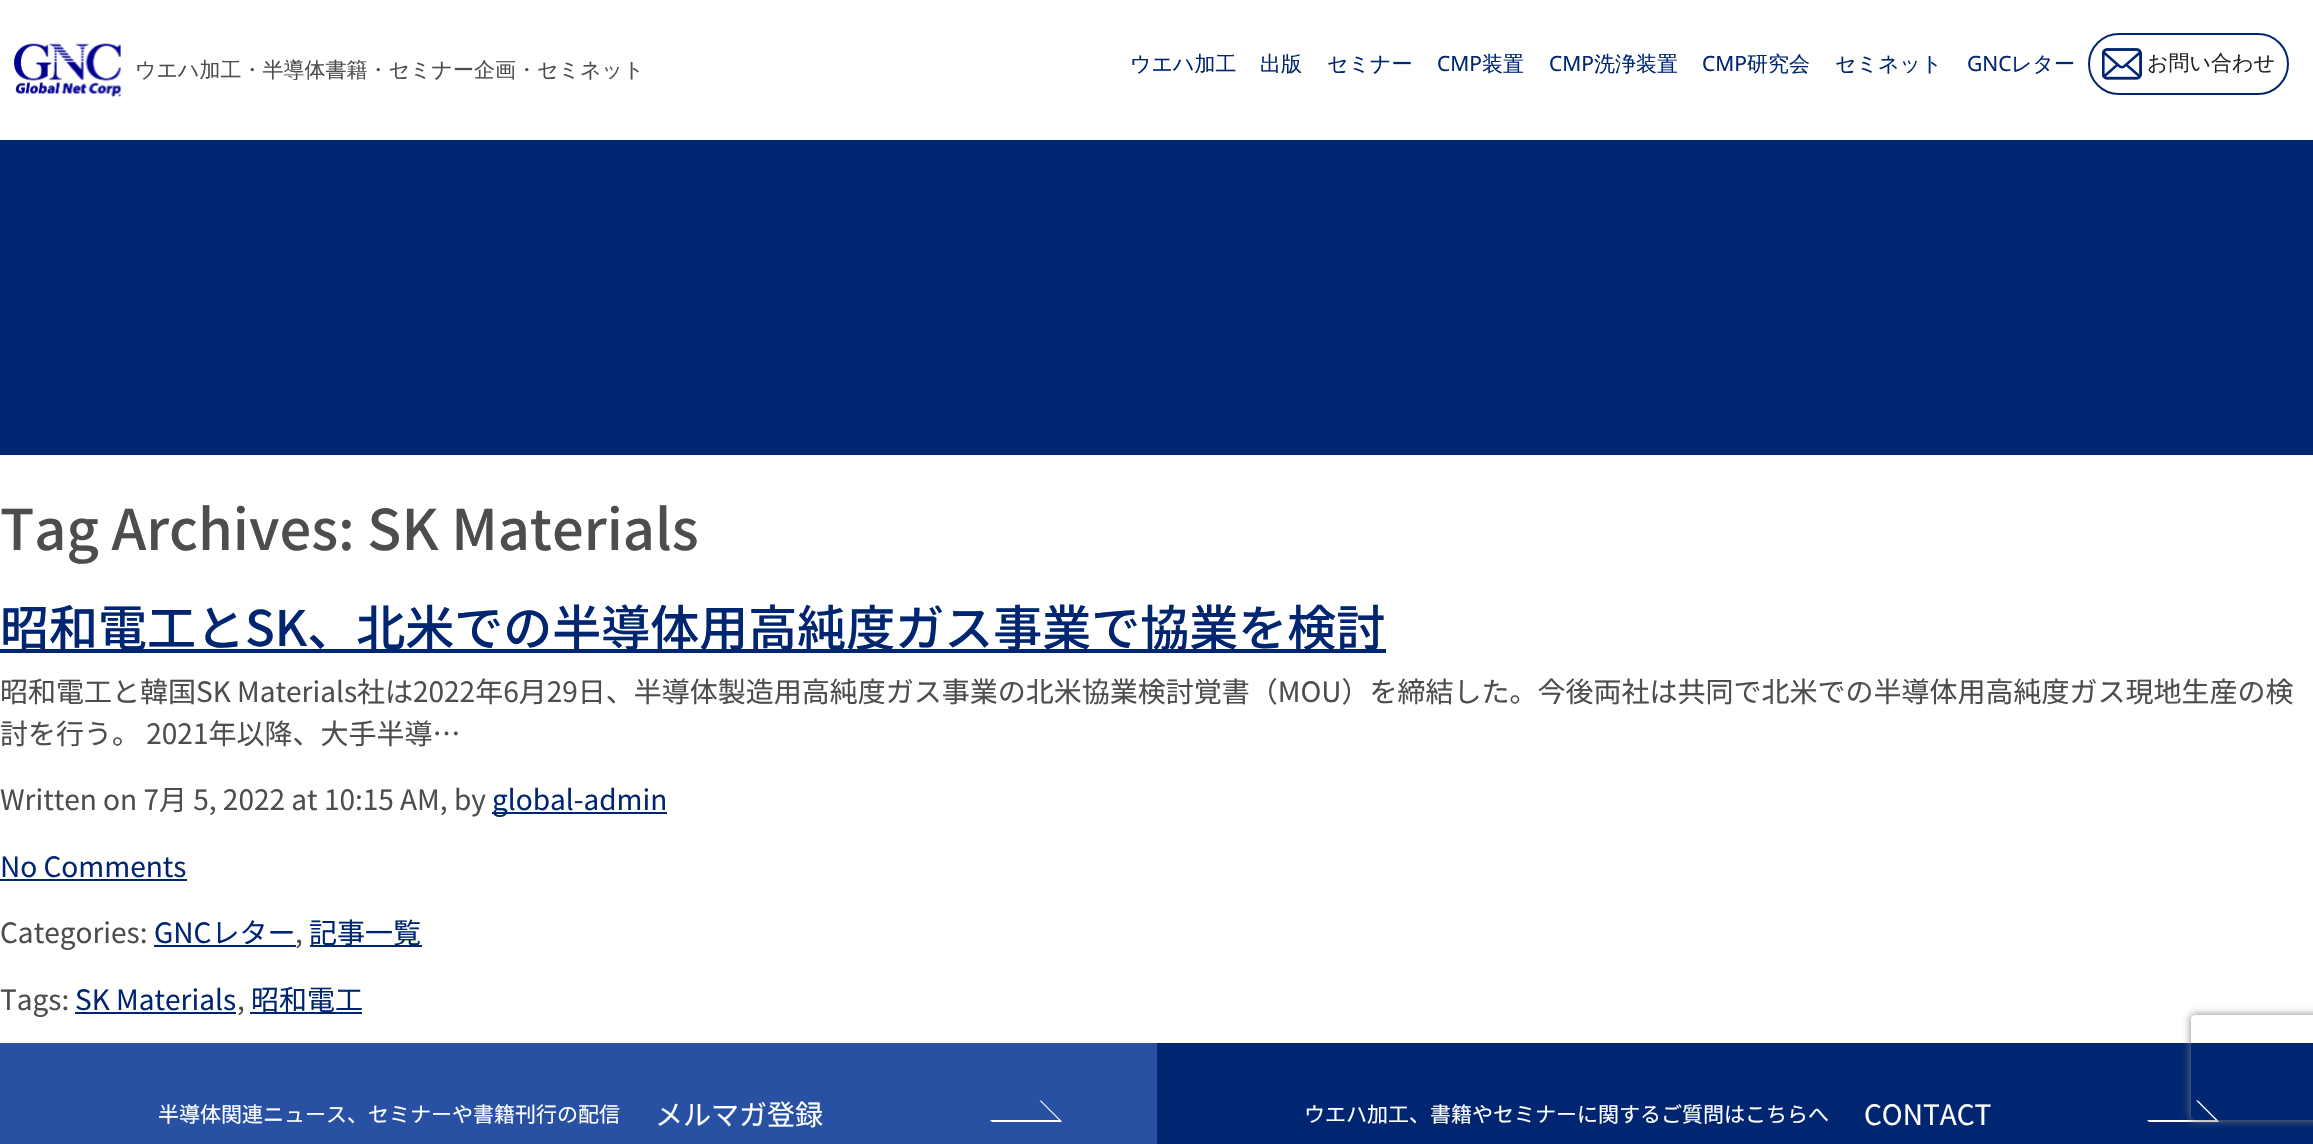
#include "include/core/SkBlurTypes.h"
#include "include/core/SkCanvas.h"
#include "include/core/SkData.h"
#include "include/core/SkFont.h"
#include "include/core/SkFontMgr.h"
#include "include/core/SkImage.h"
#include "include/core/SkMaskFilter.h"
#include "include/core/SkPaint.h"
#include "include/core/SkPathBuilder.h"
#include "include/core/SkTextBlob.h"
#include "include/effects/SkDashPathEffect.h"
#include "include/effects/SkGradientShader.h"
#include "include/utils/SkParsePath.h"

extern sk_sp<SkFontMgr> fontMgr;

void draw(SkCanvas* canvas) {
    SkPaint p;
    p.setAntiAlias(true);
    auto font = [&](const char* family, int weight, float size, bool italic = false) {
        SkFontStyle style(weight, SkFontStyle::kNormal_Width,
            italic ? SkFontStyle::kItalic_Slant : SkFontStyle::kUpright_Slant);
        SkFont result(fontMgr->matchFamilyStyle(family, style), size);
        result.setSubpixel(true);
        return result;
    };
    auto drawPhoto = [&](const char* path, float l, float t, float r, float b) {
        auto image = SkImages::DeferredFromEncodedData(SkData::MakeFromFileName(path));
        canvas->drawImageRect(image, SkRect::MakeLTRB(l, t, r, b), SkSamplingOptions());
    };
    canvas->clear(0xFFFFFFFF);
    drawPhoto("media/1.png", 14, 43, 121, 97);
    auto font1 = font("WenQuanYi Zen Hei", 500, 21);
    p.setColor(0xFF4D4D4D);
    canvas->drawString("ウエハ加工・半導体書籍・セミナー企画・セミネット", 135, 77, font1, p);
    p.setColor(0xFF002671);
    {
        const struct { const char* s; float x, y; } items[] = {
            {"ウエハ加工", 1130, 71},
            {"出版", 1260, 71},
            {"セミナー", 1327, 71},
        };
        for (auto [s, x, y] : items) {
            canvas->drawString(s, x, y, font1, p);
        }
    }
    auto font2 = font("Noto Sans", 400, 21);
    canvas->drawString("CMP", 1437, 71, font2, p);
    canvas->drawString("装置", 1482, 71, font1, p);
    canvas->drawString("CMP", 1549, 71, font2, p);
    canvas->drawString("洗浄装置", 1594, 71, font1, p);
    canvas->drawString("CMP", 1702, 71, font2, p);
    canvas->drawString("研究会", 1747, 71, font1, p);
    canvas->drawString("セミネット", 1835, 71, font1, p);
    canvas->drawString("GNC", 1967, 71, font2, p);
    canvas->drawString("レター", 2011, 71, font1, p);
    p.setStyle(SkPaint::kStroke_Style);
    p.setStrokeWidth(2);
    canvas->drawRoundRect(SkRect::MakeLTRB(2089, 34, 2288, 94), 30, 30, p);
    drawPhoto("media/2.png", 2102, 48, 2142, 80);
    p.setStyle(SkPaint::kFill_Style);
    p.setColor(0xFF212529);
    canvas->drawString("お問い合わせ", 2147, 70, font1, p);
    p.setColor(0xFF002671);
    canvas->drawRect(SkRect::MakeLTRB(0, 140, 2313, 455), p);
    auto font3 = font("Noto Sans JP", 500, 56);
    p.setColor(0xFF4D4D4D);
    canvas->drawString("Tag Archives: SK Materials", 0, 550, font3, p);
    p.setColor(0xFF002671);
    canvas->drawRect(SkRect::MakeLTRB(0, 649, 1386, 653), p);
    auto font4 = font("Noto Sans JP", 500, 49);
    canvas->drawString("昭和電工とSK、北米での半導体用高純度ガス事業で協業を検討", 0, 646, font4, p);
    auto font5 = font("Noto Sans JP", 400, 28);
    p.setColor(0xFF4D4D4D);
    {
        const struct { const char* s; float x, y; } items[] = {
            {"昭和電工と韓国SK Materials社は2022年6月29日、半導体製造用高純度ガス事業の北米協業検討覚書（MOU）を締結した。今後両社は共同で北米での半導体用高純度ガス現地生産の検", 0, 702},
            {"討を行う。 2021年以降、大手半導…", 0, 744},
            {"Written on 7月 5, 2022 at 10:15 AM, by", 0, 810},
        };
        for (auto [s, x, y] : items) {
            canvas->drawString(s, x, y, font5, p);
        }
    }
    p.setColor(0xFF002671);
    canvas->drawRect(SkRect::MakeLTRB(492, 812, 667, 814), p);
    canvas->drawString("global-admin", 492, 810, font5, p);
    canvas->drawString("No Comments", 0, 877, font5, p);
    canvas->drawRect(SkRect::MakeLTRB(0, 879, 187, 881), p);
    p.setColor(0xFF4D4D4D);
    canvas->drawString("Categories:", 0, 943, font5, p);
    p.setColor(0xFF002671);
    canvas->drawString("GNCレター", 154, 943, font5, p);
    canvas->drawRect(SkRect::MakeLTRB(154, 945, 296, 947), p);
    p.setColor(0xFF4D4D4D);
    canvas->drawString(",", 295, 943, font5, p);
    p.setColor(0xFF002671);
    canvas->drawRect(SkRect::MakeLTRB(310, 945, 422, 947), p);
    canvas->drawString("記事一覧", 309, 943, font5, p);
    p.setColor(0xFF4D4D4D);
    canvas->drawString("Tags:", 0, 1010, font5, p);
    p.setColor(0xFF002671);
    canvas->drawString("SK Materials", 75, 1010, font5, p);
    canvas->drawRect(SkRect::MakeLTRB(75, 1012, 236, 1014), p);
    p.setColor(0xFF4D4D4D);
    canvas->drawString(",", 237, 1010, font5, p);
    p.setColor(0xFF002671);
    canvas->drawRect(SkRect::MakeLTRB(250, 1012, 362, 1014), p);
    canvas->drawString("昭和電工", 251, 1010, font5, p);
    p.setColor(0xFF2851A3);
    canvas->drawRect(SkRect::MakeLTRB(0, 1043, 1157, 1144), p);
    auto font6 = font("Noto Sans JP", 400, 21);
    p.setColor(0xFFFFFFFF);
    canvas->drawString("半導体関連ニュース、セミナーや書籍刊行の配信", 158, 1122, font6, p);
    canvas->drawString("メルマガ登録", 655, 1125, font5, p);
    canvas->drawPath(SkPathBuilder().moveTo(1039.5f, 1100.5f).lineTo(1041, 1100.5f).lineTo(1062, 1121.5f).lineTo(1060.5f, 1121.5f).close().detach(), p);
    canvas->drawPath(SkPathBuilder().moveTo(990, 1120).lineTo(1060, 1120).lineTo(1062, 1122).lineTo(992, 1122).close().detach(), p);
    p.setColor(0xFF002671);
    canvas->drawRect(SkRect::MakeLTRB(1157, 1043, 2313, 1144), p);
    p.setColor(0xFFFFFFFF);
    canvas->drawString("ウエハ加工、書籍やセミナーに関するご質問はこちらへ", 1304, 1122, font6, p);
    canvas->drawString("CONTACT", 1864, 1125, font5, p);
    canvas->drawPath(SkPathBuilder().moveTo(2196, 1100.5f).lineTo(2198, 1100.5f).lineTo(2219, 1121.5f).lineTo(2217, 1121.5f).close().detach(), p);
    canvas->drawPath(SkPathBuilder().moveTo(2147, 1120).lineTo(2217, 1120).lineTo(2219, 1122).lineTo(2149, 1122).close().detach(), p);
    canvas->save();
    canvas->clipPath(SkPathBuilder(SkPathFillType::kEvenOdd).moveTo(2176, 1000).lineTo(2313, 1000).lineTo(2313, 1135).lineTo(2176, 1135).close().moveTo(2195, 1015).lineTo(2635, 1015).cubicTo(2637, 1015, 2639, 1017, 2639, 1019).lineTo(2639, 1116).cubicTo(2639, 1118, 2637, 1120, 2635, 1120).lineTo(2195, 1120).cubicTo(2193, 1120, 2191, 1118, 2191, 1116).lineTo(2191, 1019).cubicTo(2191, 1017, 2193, 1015, 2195, 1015).close().detach(), true);
    p.setColor(0xFF808080);
    p.setMaskFilter(SkMaskFilter::MakeBlur(kNormal_SkBlurStyle, 4.5f));
    canvas->drawRoundRect(SkRect::MakeLTRB(2191, 1015, 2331, 1120), 4, 4, p);
    p.setMaskFilter(nullptr);
    canvas->restore();
}
